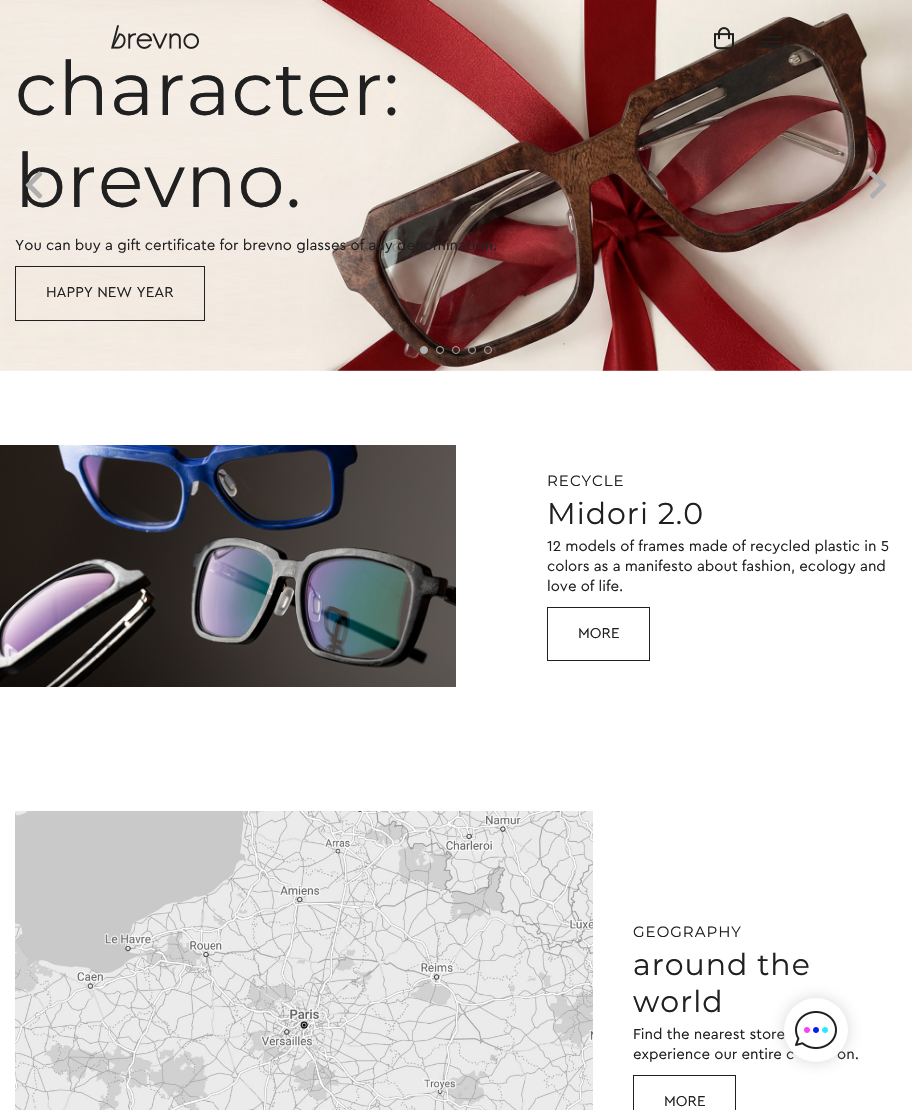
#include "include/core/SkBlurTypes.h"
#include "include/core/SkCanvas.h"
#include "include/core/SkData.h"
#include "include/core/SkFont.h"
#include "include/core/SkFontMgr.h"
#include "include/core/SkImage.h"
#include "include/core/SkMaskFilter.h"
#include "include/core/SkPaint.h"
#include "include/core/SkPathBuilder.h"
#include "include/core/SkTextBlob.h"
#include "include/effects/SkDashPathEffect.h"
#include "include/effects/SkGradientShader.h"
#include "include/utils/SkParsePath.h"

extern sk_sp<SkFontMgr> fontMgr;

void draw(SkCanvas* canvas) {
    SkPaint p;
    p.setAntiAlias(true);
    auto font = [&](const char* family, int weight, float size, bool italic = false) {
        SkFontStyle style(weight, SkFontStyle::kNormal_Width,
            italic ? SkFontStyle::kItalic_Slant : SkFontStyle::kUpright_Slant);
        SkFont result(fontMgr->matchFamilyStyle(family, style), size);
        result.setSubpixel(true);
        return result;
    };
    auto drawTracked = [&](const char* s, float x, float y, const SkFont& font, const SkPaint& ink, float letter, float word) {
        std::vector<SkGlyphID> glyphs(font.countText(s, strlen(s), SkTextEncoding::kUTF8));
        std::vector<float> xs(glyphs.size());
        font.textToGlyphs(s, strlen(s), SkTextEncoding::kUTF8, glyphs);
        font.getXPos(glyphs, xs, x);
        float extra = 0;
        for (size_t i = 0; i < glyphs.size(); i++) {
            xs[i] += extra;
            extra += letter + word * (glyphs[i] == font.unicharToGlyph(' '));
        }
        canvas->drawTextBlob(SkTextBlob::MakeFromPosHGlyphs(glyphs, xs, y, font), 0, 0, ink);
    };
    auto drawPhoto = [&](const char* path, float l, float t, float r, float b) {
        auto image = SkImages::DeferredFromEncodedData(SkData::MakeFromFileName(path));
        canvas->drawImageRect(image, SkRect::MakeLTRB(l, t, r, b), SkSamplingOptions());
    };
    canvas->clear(0xFFFFFFFF);
    drawPhoto("media/3.png", 0, 0, 912, 371);
    drawPhoto("media/1.png", 111, 25, 199, 49);
    drawPhoto("media/2.png", 714, 27, 734, 50);
    {
        const struct { float l, t, r, b; SkColor color; } items[] = {
            {761, 41, 781, 43, 0xFF202020},
            {761, 36, 781, 38, 0xFF202020},
            {761, 46, 781, 48, 0xFF202020},
        };
        for (auto [l, t, r, b, color] : items) {
            p.setColor(color);
            canvas->drawRect(SkRect::MakeLTRB(l, t, r, b), p);
        }
    }
    auto font1 = font("Montserrat", 400, 75);
    drawTracked("character:", 15, 115, font1, p, 1, 0);
    drawTracked("brevno.", 15, 207, font1, p, 1, 0);
    auto font2 = font("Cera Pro", 400, 15);
    canvas->drawString("You can buy a gift certificate for brevno glasses of any denomination.", 15, 250, font2, p);
    p.setStyle(SkPaint::kStroke_Style);
    p.setStrokeWidth(1);
    canvas->drawRect(SkRect::MakeLTRB(15.5f, 266.5f, 204.5f, 320.5f), p);
    p.setStyle(SkPaint::kFill_Style);
    canvas->drawString("HAPPY NEW YEAR", 46, 297, font2, p);
    drawPhoto("media/4.png", 25, 171, 43, 199);
    drawPhoto("media/5.png", 869, 171, 887, 199);
    p.setColor(0xFFAFAFAF);
    canvas->drawCircle(424, 350, 3.5f, p);
    p.setStyle(SkPaint::kStroke_Style);
    canvas->drawCircle(424, 350, 3.5f, p);
    canvas->drawCircle(440, 350, 3.5f, p);
    canvas->drawCircle(456, 350, 3.5f, p);
    canvas->drawCircle(472, 350, 3.5f, p);
    canvas->drawCircle(488, 350, 3.5f, p);
    drawPhoto("media/6.png", 0, 445, 456, 687);
    auto font3 = font("Montserrat", 400, 15);
    p.setStyle(SkPaint::kFill_Style);
    p.setColor(0xFF202020);
    drawTracked("RECYCLE", 547, 486, font3, p, 1, 0);
    auto font4 = font("Montserrat", 400, 30);
    drawTracked("Midori 2.0", 547, 524, font4, p, 1, 0);
    {
        const struct { const char* s; float x, y; } items[] = {
            {"12 models of frames made of recycled plastic in 5", 547, 551},
            {"colors as a manifesto about fashion, ecology and", 547, 571},
            {"love of life.", 547, 591},
        };
        for (auto [s, x, y] : items) {
            canvas->drawString(s, x, y, font2, p);
        }
    }
    p.setStyle(SkPaint::kStroke_Style);
    canvas->drawRect(SkRect::MakeLTRB(547.5f, 607.5f, 649.5f, 660.5f), p);
    p.setStyle(SkPaint::kFill_Style);
    canvas->drawString("MORE", 578, 638, font2, p);
    drawPhoto("media/7.png", 15, 811, 593, 1110);
    drawTracked("GEOGRAPHY", 633, 937, font3, p, 1, 0);
    drawTracked("around the", 633, 975, font4, p, 1, 0);
    drawTracked("world", 633, 1012, font4, p, 1, 0);
    {
        const struct { const char* s; float x, y; } items[] = {
            {"Find the nearest store", 633, 1039},
            {"experience our entire c", 633, 1059},
            {"on.", 837, 1059},
        };
        for (auto [s, x, y] : items) {
            canvas->drawString(s, x, y, font2, p);
        }
    }
    p.setStyle(SkPaint::kStroke_Style);
    canvas->drawRect(SkRect::MakeLTRB(633.5f, 1075.5f, 735.5f, 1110.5f), p);
    p.setStyle(SkPaint::kFill_Style);
    canvas->drawString("MORE", 664, 1106, font2, p);
    p.setColor(0x80AFAFAF);
    p.setMaskFilter(SkMaskFilter::MakeBlur(kNormal_SkBlurStyle, 8));
    canvas->drawRoundRect(SkRect::MakeLTRB(784, 998, 848, 1062), 32, 32, p);
    p.setMaskFilter(nullptr);
    p.setColor(0xFFFFFFFF);
    canvas->drawCircle(816, 1030, 32, p);
    drawPhoto("media/8.png", 795, 1011, 837, 1049);
}
